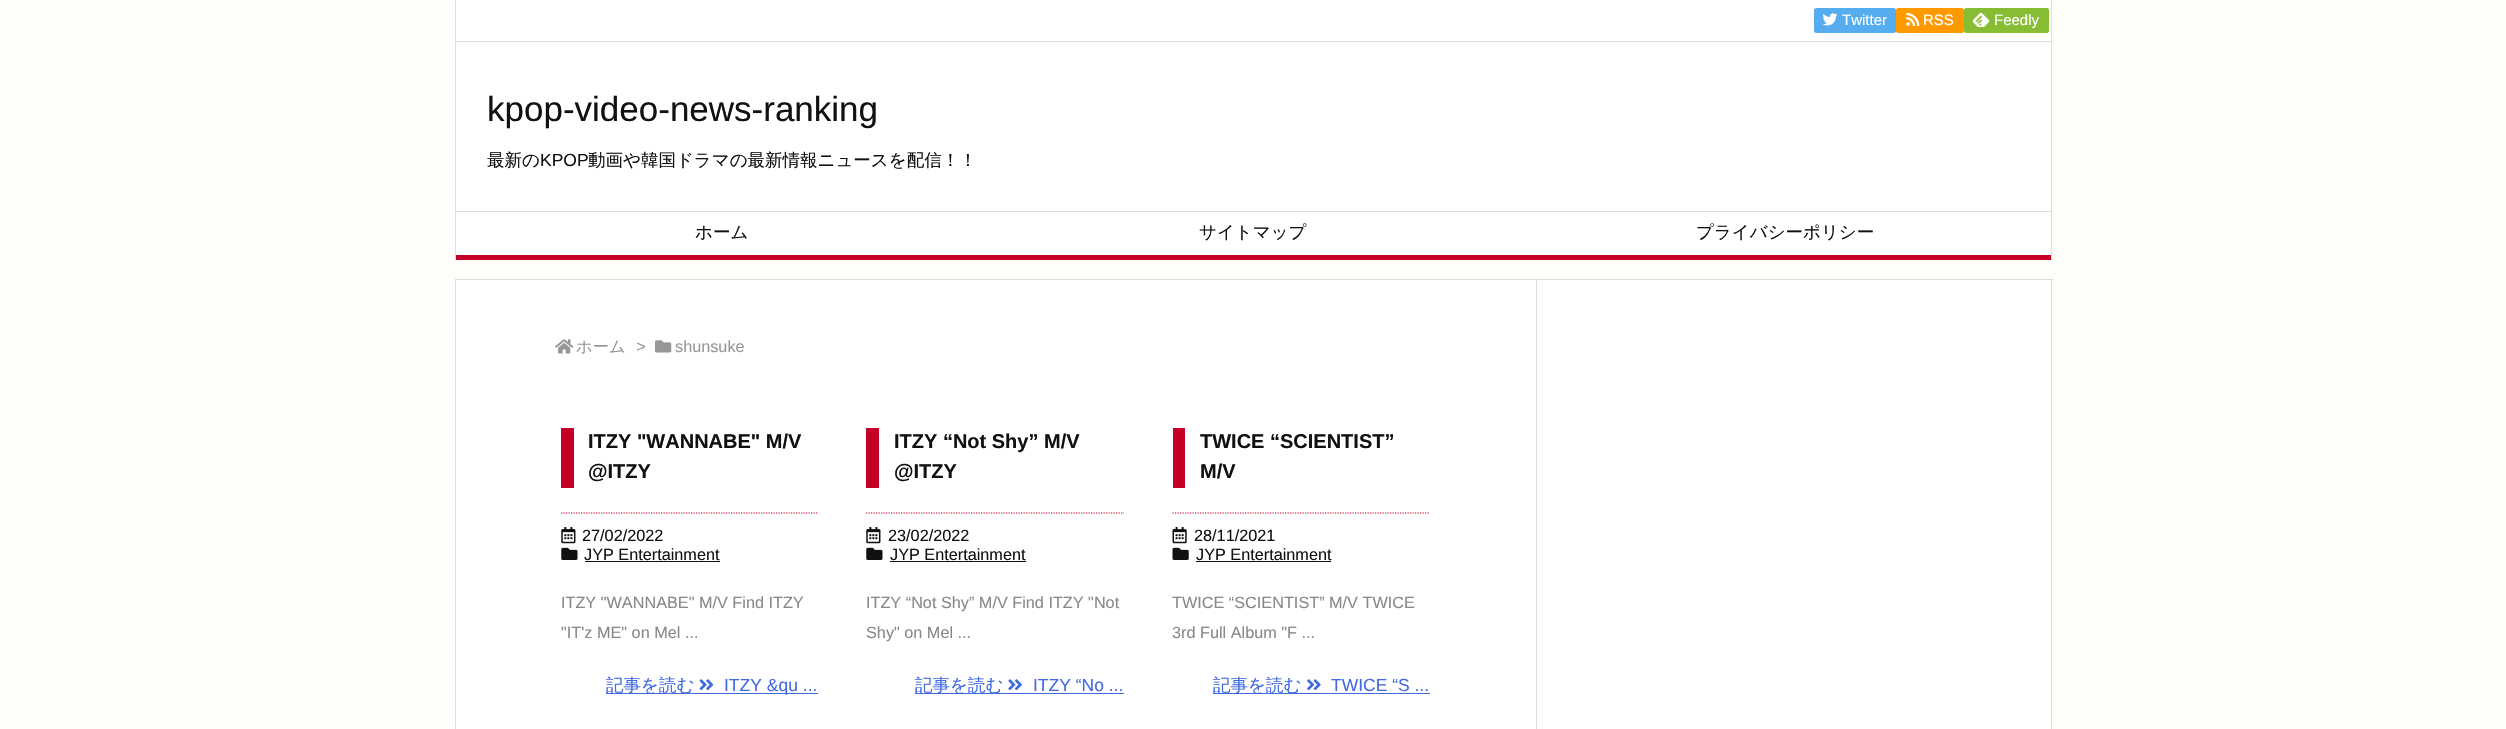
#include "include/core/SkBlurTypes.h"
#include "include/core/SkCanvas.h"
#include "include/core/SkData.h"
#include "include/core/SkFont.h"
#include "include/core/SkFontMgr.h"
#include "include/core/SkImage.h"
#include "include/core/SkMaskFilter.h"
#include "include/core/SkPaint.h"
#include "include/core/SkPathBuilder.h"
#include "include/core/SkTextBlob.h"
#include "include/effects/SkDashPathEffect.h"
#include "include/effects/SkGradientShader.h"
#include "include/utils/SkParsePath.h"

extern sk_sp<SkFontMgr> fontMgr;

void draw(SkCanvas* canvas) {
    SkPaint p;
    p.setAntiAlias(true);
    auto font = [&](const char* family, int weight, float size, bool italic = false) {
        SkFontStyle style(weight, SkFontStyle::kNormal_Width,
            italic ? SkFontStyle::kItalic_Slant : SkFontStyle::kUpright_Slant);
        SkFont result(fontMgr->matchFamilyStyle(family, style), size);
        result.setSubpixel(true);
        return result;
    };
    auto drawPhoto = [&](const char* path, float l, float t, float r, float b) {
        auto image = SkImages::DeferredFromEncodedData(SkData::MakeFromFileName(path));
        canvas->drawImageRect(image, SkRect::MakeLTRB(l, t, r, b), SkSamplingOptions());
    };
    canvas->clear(0xFFFFFDF9);
    {
        const struct { float l, t, r, b; SkColor color; } items[] = {
            {2051, 43, 2052, 260, 0xFFDDDDDD},
            {455, 43, 456, 260, 0xFFDDDDDD},
            {456, 0, 2053, 43, 0xFFFFFFFF},
            {2051, 0, 2052, 43, 0xFFDDDDDD},
            {455, 41, 2053, 42, 0xFFDDDDDD},
            {455, 0, 456, 43, 0xFFDDDDDD},
        };
        for (auto [l, t, r, b, color] : items) {
            p.setColor(color);
            canvas->drawRect(SkRect::MakeLTRB(l, t, r, b), p);
        }
    }
    p.setColor(0xFF55ACEE);
    canvas->drawRoundRect(SkRect::MakeLTRB(1814, 8, 1896, 33), 2.5f, 2.5f, p);
    drawPhoto("media/1.png", 1822, 13, 1838, 26);
    auto font1 = font("Liberation Sans", 400, 15);
    p.setColor(0xFFFFFFFF);
    canvas->drawString("Twitter", 1842, 25, font1, p);
    p.setColor(0xFFFE9900);
    canvas->drawRoundRect(SkRect::MakeLTRB(1896, 8, 1964, 33), 2.5f, 2.5f, p);
    drawPhoto("media/2.png", 1906, 12, 1920, 26);
    p.setColor(0xFFFFFFFF);
    canvas->drawString("RSS", 1923, 25, font1, p);
    p.setColor(0xFF87BD33);
    canvas->drawRoundRect(SkRect::MakeLTRB(1964, 8, 2049, 33), 2.5f, 2.5f, p);
    drawPhoto("media/3.png", 1972, 12, 1990, 28);
    p.setColor(0xFFFFFFFF);
    canvas->drawString("Feedly", 1994, 25, font1, p);
    {
        const struct { float l, t, r, b; SkColor color; } items[] = {
            {456, 212, 2051, 255, 0xFFFFFFFF},
            {456, 211, 2051, 212, 0xFFDDDDDD},
            {456, 255, 2051, 260, 0xFFC40026},
        };
        for (auto [l, t, r, b, color] : items) {
            p.setColor(color);
            canvas->drawRect(SkRect::MakeLTRB(l, t, r, b), p);
        }
    }
    auto font2 = font("WenQuanYi Zen Hei", 500, 17.5f);
    p.setColor(0xFF111111);
    {
        const struct { const char* s; float x, y; } items[] = {
            {"ホーム", 695, 238},
            {"サイトマップ", 1199, 238},
            {"プライバシーポリシー", 1696, 238},
        };
        for (auto [s, x, y] : items) {
            canvas->drawString(s, x, y, font2, p);
        }
    }
    p.setColor(0xFFFFFFFF);
    canvas->drawRect(SkRect::MakeLTRB(456, 43, 2051, 211), p);
    auto font3 = font("Liberation Sans", 400, 35);
    p.setColor(0xFF111111);
    canvas->drawString("kpop-video-news-ranking", 487, 121, font3, p);
    canvas->drawString("最新の", 487, 166, font2, p);
    auto font4 = font("Liberation Sans", 400, 17.5f);
    canvas->drawString("KPOP", 540, 166, font4, p);
    canvas->drawString("動画や韓国ドラマの最新情報ニュースを配信！！", 588, 166, font2, p);
    {
        const struct { float l, t, r, b; SkColor color; } items[] = {
            {456, 280, 2053, 729, 0xFFFFFFFF},
            {455, 279, 2053, 280, 0xFFDDDDDD},
            {2051, 279, 2052, 729, 0xFFDDDDDD},
            {455, 279, 456, 729, 0xFFDDDDDD},
        };
        for (auto [l, t, r, b, color] : items) {
            p.setColor(color);
            canvas->drawRect(SkRect::MakeLTRB(l, t, r, b), p);
        }
    }
    drawPhoto("media/4.png", 555, 339, 574, 354);
    auto font5 = font("WenQuanYi Zen Hei", 500, 16.25f);
    p.setColor(0xFF989796);
    canvas->drawString("ホーム", 576, 352, font5, p);
    auto font6 = font("Liberation Sans", 400, 16.25f, true);
    canvas->drawString(">", 636, 352, font6, p);
    drawPhoto("media/5.png", 655, 340, 672, 353);
    auto font7 = font("Liberation Sans", 400, 16.25f);
    canvas->drawString("shunsuke", 675, 352, font7, p);
    p.setColor(0xFFC40026);
    canvas->drawRect(SkRect::MakeLTRB(561, 428, 574, 488), p);
    auto font8 = font("Liberation Sans", 700, 20);
    p.setColor(0xFF111111);
    canvas->drawString("ITZY \"WANNABE\" M/V", 588, 448, font8, p);
    canvas->drawString("@ITZY", 588, 478, font8, p);
    p.setStyle(SkPaint::kStroke_Style);
    p.setStrokeWidth(1.2f);
    p.setColor(0xFFC40026);
    p.setPathEffect(SkDashPathEffect::Make({{1.25f, 1.25f}}, 0));
    canvas->drawPath(SkPathBuilder().moveTo(561, 513).lineTo(817.5f, 513).detach(), p);
    p.setPathEffect(nullptr);
    drawPhoto("media/6.png", 561, 527, 576, 544);
    p.setStyle(SkPaint::kFill_Style);
    p.setColor(0xFF111111);
    canvas->drawString("27/02/2022", 582, 541, font7, p);
    drawPhoto("media/7.png", 561, 547, 578, 560);
    canvas->drawString("JYP Entertainment", 584, 560, font7, p);
    canvas->drawRect(SkRect::MakeLTRB(585, 561, 720, 562), p);
    p.setColor(0xFF888888);
    canvas->drawString("ITZY \"WANNABE\" M/V Find ITZY", 561, 608, font7, p);
    canvas->drawString("\"IT'z ME\" on Mel ...", 561, 638, font7, p);
    p.setColor(0xFF4169E1);
    canvas->drawRect(SkRect::MakeLTRB(606, 693, 818, 694), p);
    canvas->drawString("記事を読む", 606, 691, font2, p);
    drawPhoto("media/8.png", 699, 679, 714, 691);
    canvas->drawString("ITZY &qu ...", 724, 691, font4, p);
    p.setColor(0xFFC40026);
    canvas->drawRect(SkRect::MakeLTRB(866, 428, 879, 488), p);
    p.setColor(0xFF111111);
    canvas->drawString("ITZY “Not Shy” M/V", 894, 448, font8, p);
    canvas->drawString("@ITZY", 894, 478, font8, p);
    p.setStyle(SkPaint::kStroke_Style);
    p.setColor(0xFFC40026);
    p.setPathEffect(SkDashPathEffect::Make({{1.25f, 1.25f}}, 0));
    canvas->drawPath(SkPathBuilder().moveTo(866, 513).lineTo(1124, 513).detach(), p);
    p.setPathEffect(nullptr);
    drawPhoto("media/6.png", 866, 527, 881, 544);
    p.setStyle(SkPaint::kFill_Style);
    p.setColor(0xFF111111);
    canvas->drawString("23/02/2022", 888, 541, font7, p);
    drawPhoto("media/7.png", 866, 547, 883, 560);
    canvas->drawString("JYP Entertainment", 890, 560, font7, p);
    canvas->drawRect(SkRect::MakeLTRB(890, 561, 1026, 562), p);
    p.setColor(0xFF888888);
    canvas->drawString("ITZY “Not Shy” M/V Find ITZY \"Not", 866, 608, font7, p);
    canvas->drawString("Shy\" on Mel ...", 866, 638, font7, p);
    p.setColor(0xFF4169E1);
    canvas->drawRect(SkRect::MakeLTRB(915, 693, 1124, 694), p);
    canvas->drawString("記事を読む", 915, 691, font2, p);
    drawPhoto("media/9.png", 1008, 679, 1022, 691);
    canvas->drawString("ITZY “No ...", 1033, 691, font4, p);
    p.setColor(0xFFC40026);
    canvas->drawRect(SkRect::MakeLTRB(1173, 428, 1185, 488), p);
    p.setColor(0xFF111111);
    canvas->drawString("TWICE “SCIENTIST”", 1200, 448, font8, p);
    canvas->drawString("M/V", 1200, 478, font8, p);
    p.setStyle(SkPaint::kStroke_Style);
    p.setColor(0xFFC40026);
    p.setPathEffect(SkDashPathEffect::Make({{1.25f, 1.25f}}, 0));
    canvas->drawPath(SkPathBuilder().moveTo(1172.5f, 513).lineTo(1430, 513).detach(), p);
    p.setPathEffect(nullptr);
    drawPhoto("media/10.png", 1172, 527, 1187, 544);
    p.setStyle(SkPaint::kFill_Style);
    p.setColor(0xFF111111);
    canvas->drawString("28/11/2021", 1194, 541, font7, p);
    drawPhoto("media/11.png", 1172, 547, 1189, 560);
    canvas->drawString("JYP Entertainment", 1196, 560, font7, p);
    canvas->drawRect(SkRect::MakeLTRB(1196, 561, 1331, 562), p);
    p.setColor(0xFF888888);
    canvas->drawString("TWICE “SCIENTIST” M/V TWICE", 1172, 608, font7, p);
    canvas->drawString("3rd Full Album \"F ...", 1172, 638, font7, p);
    p.setColor(0xFF4169E1);
    canvas->drawRect(SkRect::MakeLTRB(1213, 693, 1430, 694), p);
    canvas->drawString("記事を読む", 1213, 691, font2, p);
    drawPhoto("media/12.png", 1307, 679, 1321, 691);
    canvas->drawString("TWICE “S ...", 1331, 691, font4, p);
    p.setColor(0xFFDDDDDD);
    canvas->drawRect(SkRect::MakeLTRB(1536, 280, 1537, 729), p);
}
